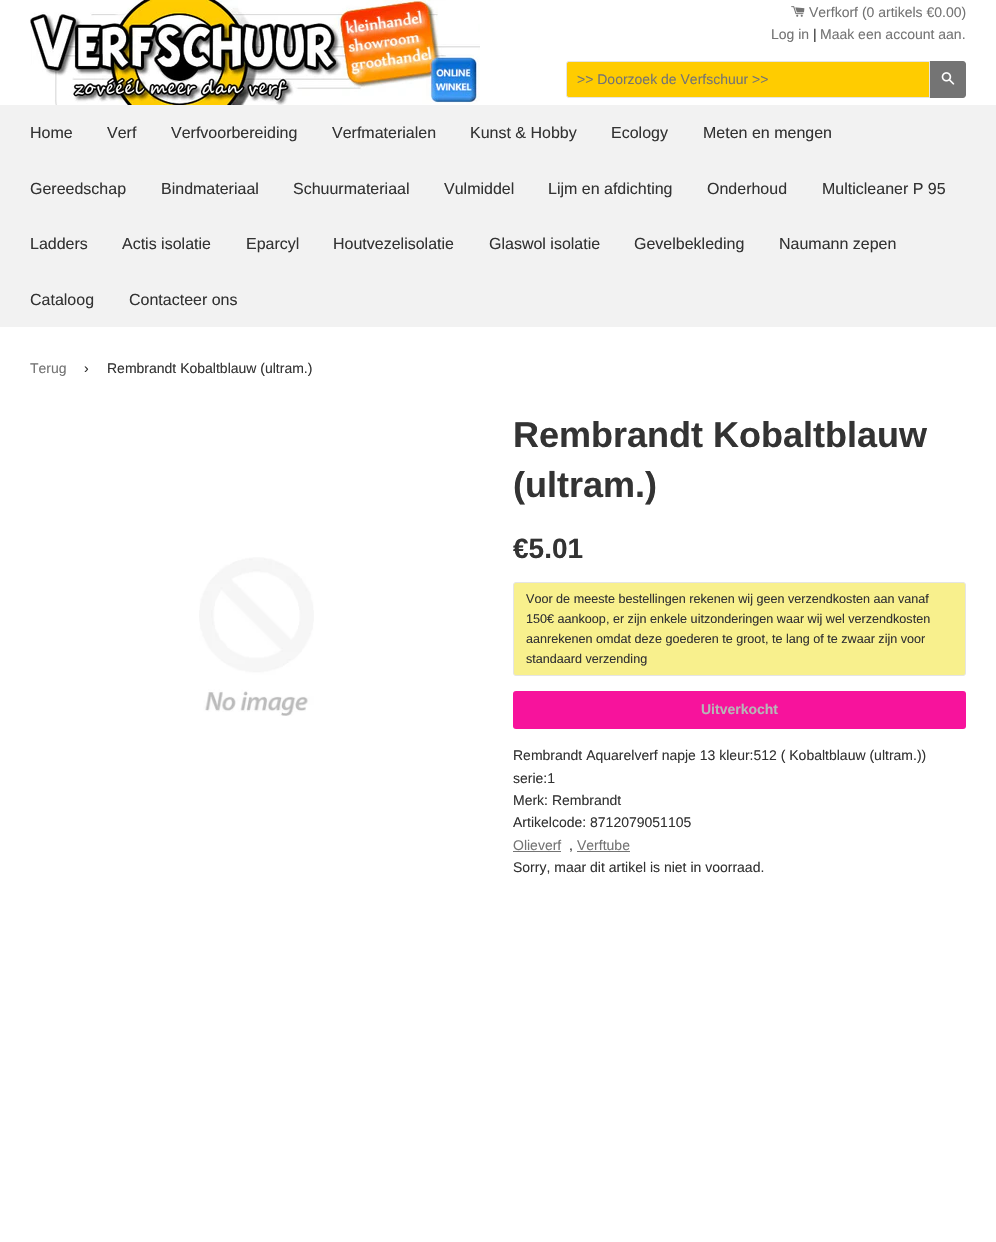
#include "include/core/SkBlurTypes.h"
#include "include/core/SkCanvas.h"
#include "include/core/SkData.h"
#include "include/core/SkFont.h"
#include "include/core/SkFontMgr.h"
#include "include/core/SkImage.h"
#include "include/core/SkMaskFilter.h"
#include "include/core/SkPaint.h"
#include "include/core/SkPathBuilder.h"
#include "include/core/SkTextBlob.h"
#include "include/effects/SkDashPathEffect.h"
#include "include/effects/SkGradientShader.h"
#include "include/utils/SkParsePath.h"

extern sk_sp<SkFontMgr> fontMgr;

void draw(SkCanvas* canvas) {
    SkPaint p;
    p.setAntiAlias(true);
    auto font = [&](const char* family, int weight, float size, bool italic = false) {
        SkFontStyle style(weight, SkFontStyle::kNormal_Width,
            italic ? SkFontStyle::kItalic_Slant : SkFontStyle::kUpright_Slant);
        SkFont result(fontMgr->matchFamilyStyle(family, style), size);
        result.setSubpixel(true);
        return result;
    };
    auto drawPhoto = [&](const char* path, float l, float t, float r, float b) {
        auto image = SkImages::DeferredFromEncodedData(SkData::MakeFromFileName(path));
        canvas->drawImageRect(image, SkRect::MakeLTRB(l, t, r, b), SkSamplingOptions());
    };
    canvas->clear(0xFFFFFFFF);
    drawPhoto("media/1.png", 30, 0, 480, 105);
    drawPhoto("media/2.png", 791, 6, 805, 17);
    auto font1 = font("Liberation Sans", 400, 14);
    p.setColor(0xFF747474);
    canvas->drawString("Verfkorf (0 artikels €0.00)", 809, 17, font1, p);
    canvas->drawString("Log in", 771, 39, font1, p);
    p.setColor(0xFF333333);
    canvas->drawString("|", 813, 39, font1, p);
    p.setColor(0xFF747474);
    canvas->drawString("Maak een account aan.", 820, 39, font1, p);
    p.setColor(0xFFFFCC00);
    canvas->drawPath(SkPathBuilder().moveTo(569, 61.5f).lineTo(929.5f, 61.5f).lineTo(929.5f, 97.5f).lineTo(569, 97.5f).cubicTo(567.5f, 97.5f, 566.5f, 96.5f, 566.5f, 95).lineTo(566.5f, 64).cubicTo(566.5f, 62.5f, 567.5f, 61.5f, 569, 61.5f).close().detach(), p);
    p.setStyle(SkPaint::kStroke_Style);
    p.setStrokeWidth(1);
    p.setColor(0xFFE5E5E5);
    canvas->drawPath(SkPathBuilder().moveTo(569, 61.5f).lineTo(929.5f, 61.5f).lineTo(929.5f, 97.5f).lineTo(569, 97.5f).cubicTo(567.5f, 97.5f, 566.5f, 96.5f, 566.5f, 95).lineTo(566.5f, 64).cubicTo(566.5f, 62.5f, 567.5f, 61.5f, 569, 61.5f).close().detach(), p);
    p.setStyle(SkPaint::kFill_Style);
    p.setColor(0xFF747474);
    canvas->drawString(">> Doorzoek de Verfschuur >>", 577, 84, font1, p);
    canvas->drawPath(SkPathBuilder().moveTo(930, 61).lineTo(963, 61).cubicTo(964.5f, 61, 966, 62.5f, 966, 64).lineTo(966, 95).cubicTo(966, 96.5f, 964.5f, 98, 963, 98).lineTo(930, 98).close().detach(), p);
    drawPhoto("media/3.png", 941, 72, 955, 85);
    p.setColor(0xFFF2F2F2);
    canvas->drawRect(SkRect::MakeLTRB(0, 105, 996, 327), p);
    auto font2 = font("Liberation Sans", 400, 16);
    p.setColor(0xFF333333);
    {
        const struct { const char* s; float x, y; } items[] = {
            {"Home", 30, 138},
            {"Verf", 107, 138},
            {"Verfvoorbereiding", 171, 138},
            {"Verfmaterialen", 332, 138},
            {"Kunst & Hobby", 470, 138},
            {"Ecology", 611, 138},
            {"Meten en mengen", 703, 138},
            {"Gereedschap", 30, 194},
            {"Bindmateriaal", 161, 194},
            {"Schuurmateriaal", 293, 194},
            {"Vulmiddel", 444, 194},
            {"Lijm en afdichting", 548, 194},
            {"Onderhoud", 707, 194},
            {"Multicleaner P 95", 822, 194},
            {"Ladders", 30, 249},
            {"Actis isolatie", 122, 249},
            {"Eparcyl", 246, 249},
            {"Houtvezelisolatie", 333, 249},
            {"Glaswol isolatie", 489, 249},
            {"Gevelbekleding", 634, 249},
            {"Naumann zepen", 779, 249},
            {"Cataloog", 30, 305},
            {"Contacteer ons", 129, 305},
        };
        for (auto [s, x, y] : items) {
            canvas->drawString(s, x, y, font2, p);
        }
    }
    p.setColor(0xFF747474);
    canvas->drawString("Terug", 30, 373, font1, p);
    p.setColor(0xFF333333);
    canvas->drawString("›", 84, 373, font1, p);
    canvas->drawString("Rembrandt Kobaltblauw (ultram.)", 107, 373, font1, p);
    drawPhoto("media/4.png", 199, 557, 314, 716);
    auto font3 = font("Liberation Sans", 700, 36);
    canvas->drawString("Rembrandt Kobaltblauw", 513, 447, font3, p);
    canvas->drawString("(ultram.)", 513, 497, font3, p);
    auto font4 = font("Liberation Sans", 700, 28);
    canvas->drawString("€5.01", 513, 558, font4, p);
    p.setColor(0xFFF8F08D);
    canvas->drawRoundRect(SkRect::MakeLTRB(513.5f, 582.5f, 965.5f, 675.5f), 2.5f, 2.5f, p);
    p.setStyle(SkPaint::kStroke_Style);
    p.setColor(0xFFE5E5E5);
    canvas->drawRoundRect(SkRect::MakeLTRB(513.5f, 582.5f, 965.5f, 675.5f), 2.5f, 2.5f, p);
    auto font5 = font("Liberation Sans", 400, 12.6f);
    p.setStyle(SkPaint::kFill_Style);
    p.setColor(0xFF333333);
    {
        const struct { const char* s; float x, y; } items[] = {
            {"Voor de meeste bestellingen rekenen wij geen verzendkosten aan vanaf", 526, 603},
            {"150€ aankoop, er zijn enkele uitzonderingen waar wij wel verzendkosten", 526, 623},
            {"aanrekenen omdat deze goederen te groot, te lang of te zwaar zijn voor", 526, 643},
            {"standaard verzending", 526, 663},
        };
        for (auto [s, x, y] : items) {
            canvas->drawString(s, x, y, font5, p);
        }
    }
    p.setColor(0xFFF7139C);
    canvas->drawRoundRect(SkRect::MakeLTRB(513, 691, 966, 729), 3, 3, p);
    auto font6 = font("Liberation Sans", 700, 14);
    p.setColor(0xFFB6B6B6);
    canvas->drawString("Uitverkocht", 701, 714, font6, p);
    p.setColor(0xFF333333);
    {
        const struct { const char* s; float x, y; } items[] = {
            {"Rembrandt Aquarelverf napje 13 kleur:512 ( Kobaltblauw (ultram.))", 513, 760},
            {"serie:1", 513, 783},
            {"Merk: Rembrandt", 513, 805},
            {"Artikelcode: 8712079051105", 513, 827},
        };
        for (auto [s, x, y] : items) {
            canvas->drawString(s, x, y, font1, p);
        }
    }
    p.setColor(0xFF747474);
    canvas->drawString("Olieverf", 513, 850, font1, p);
    canvas->drawRect(SkRect::MakeLTRB(513, 851, 561, 852), p);
    p.setColor(0xFF333333);
    canvas->drawString(",", 569, 850, font1, p);
    p.setColor(0xFF747474);
    canvas->drawString("Verftube", 577, 850, font1, p);
    canvas->drawRect(SkRect::MakeLTRB(577, 851, 630, 852), p);
    p.setColor(0xFF333333);
    canvas->drawString("Sorry, maar dit artikel is niet in voorraad.", 513, 872, font1, p);
}
